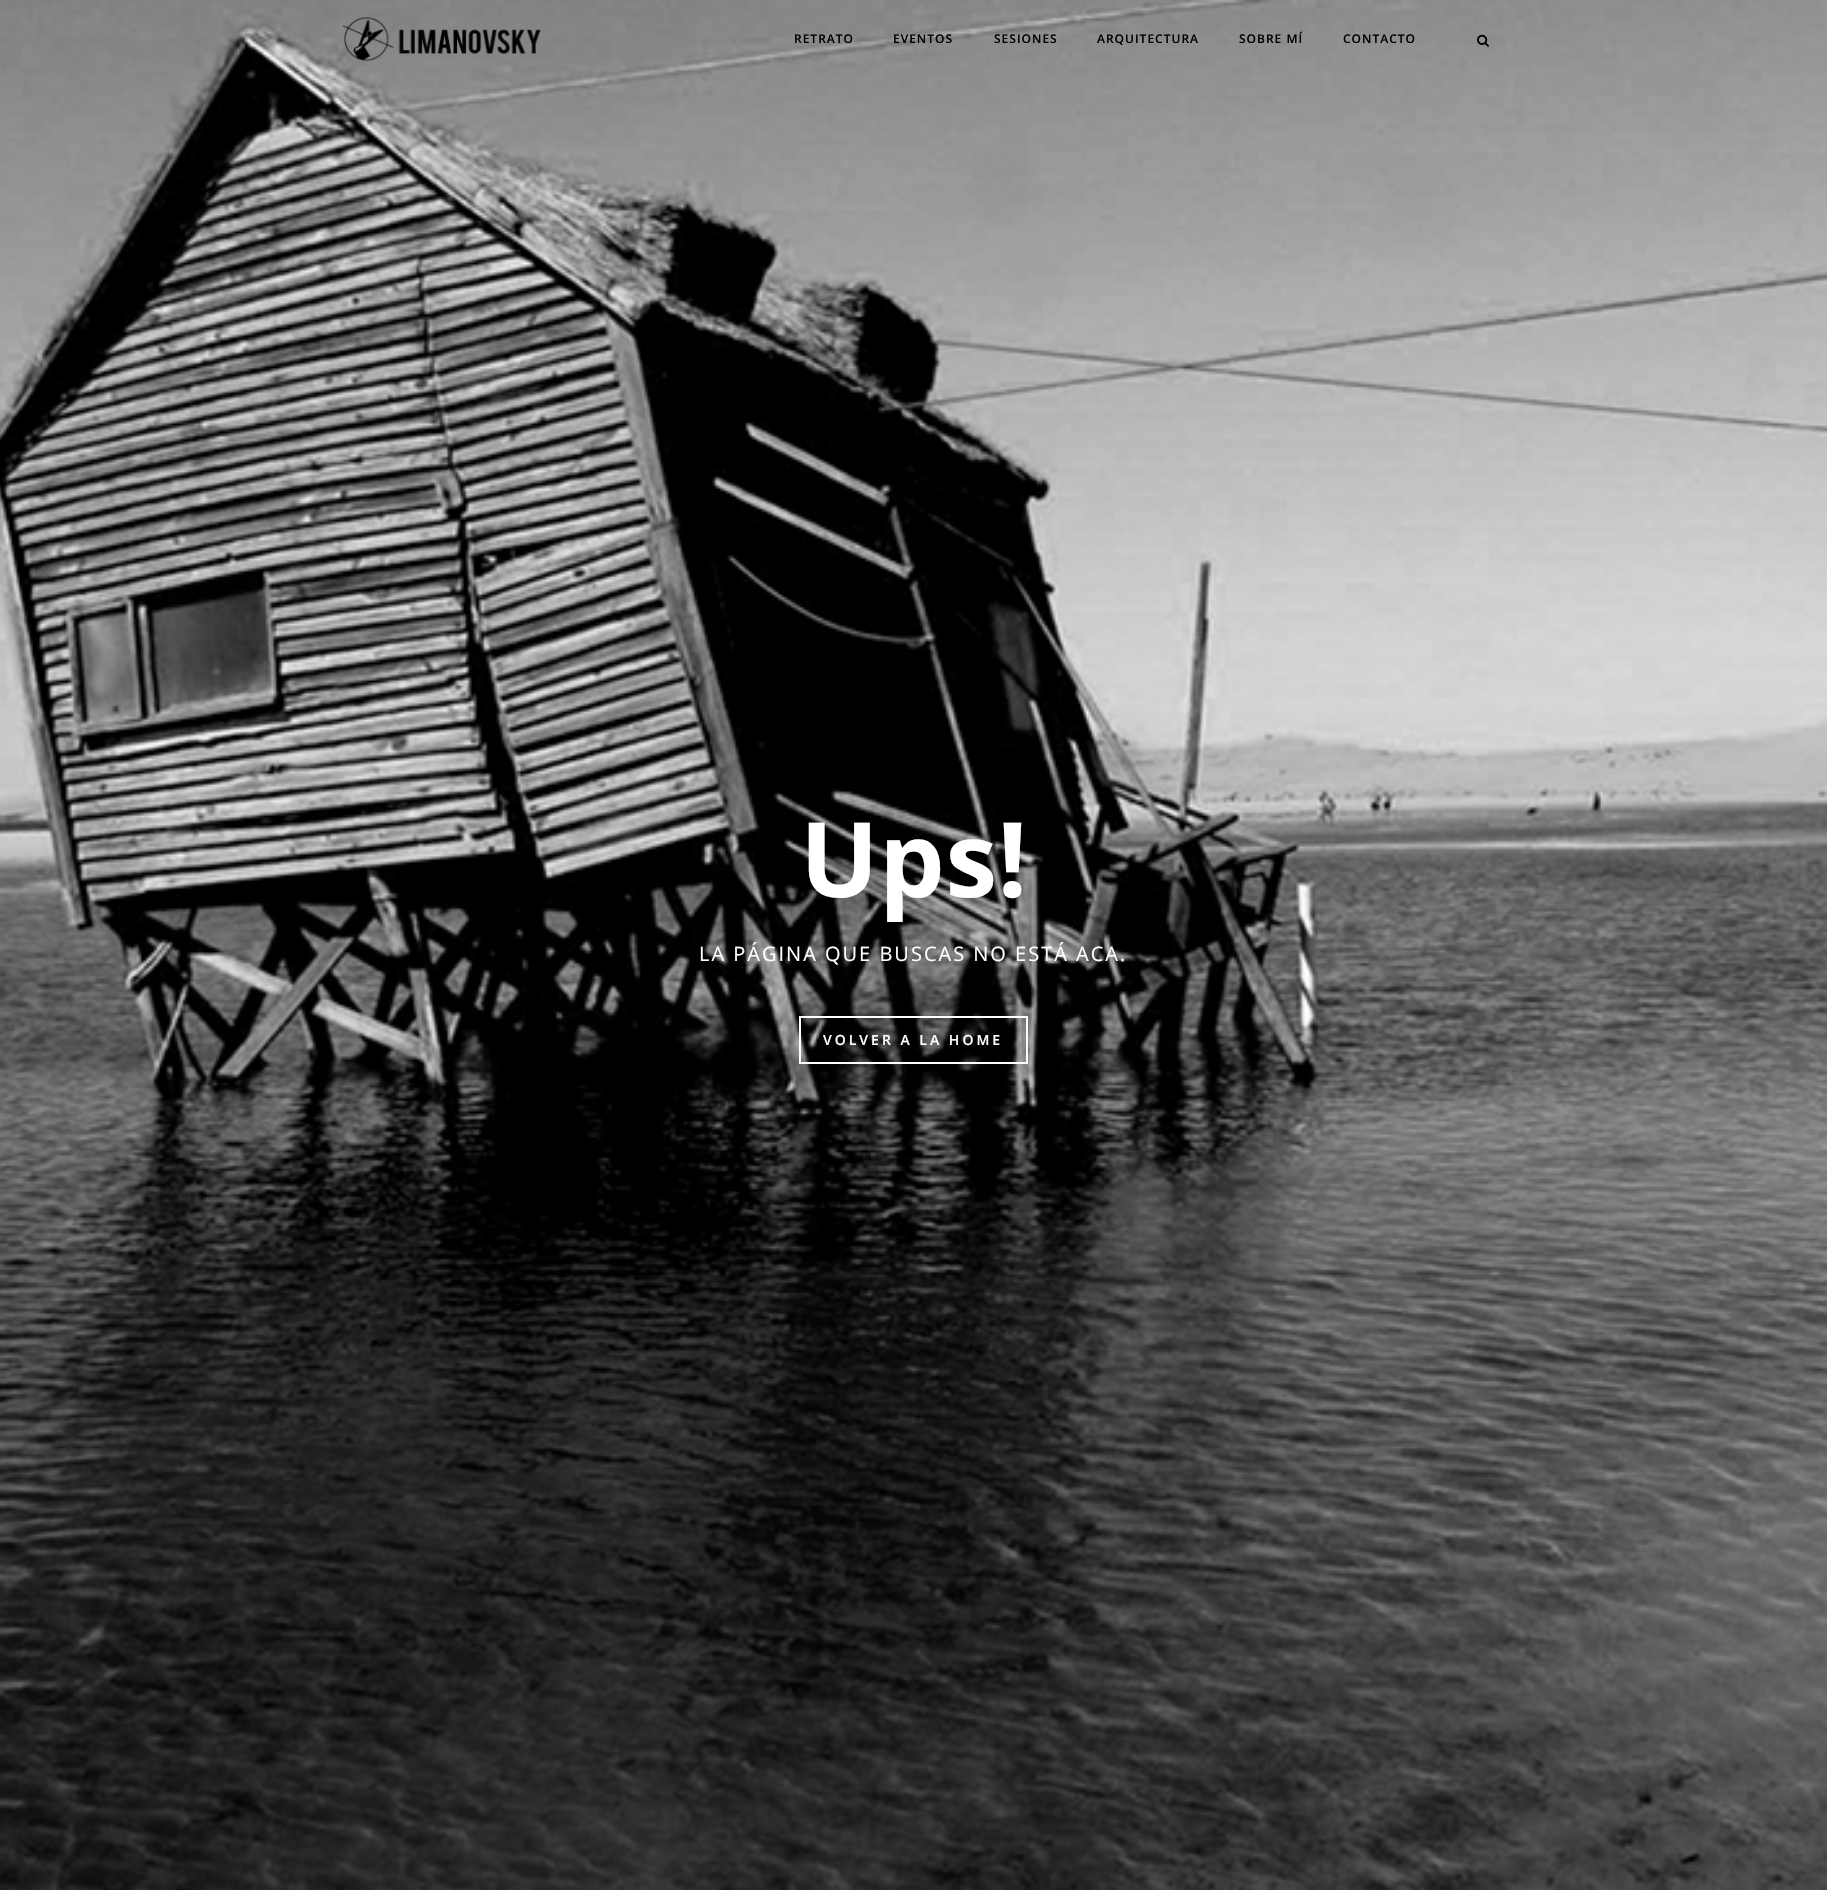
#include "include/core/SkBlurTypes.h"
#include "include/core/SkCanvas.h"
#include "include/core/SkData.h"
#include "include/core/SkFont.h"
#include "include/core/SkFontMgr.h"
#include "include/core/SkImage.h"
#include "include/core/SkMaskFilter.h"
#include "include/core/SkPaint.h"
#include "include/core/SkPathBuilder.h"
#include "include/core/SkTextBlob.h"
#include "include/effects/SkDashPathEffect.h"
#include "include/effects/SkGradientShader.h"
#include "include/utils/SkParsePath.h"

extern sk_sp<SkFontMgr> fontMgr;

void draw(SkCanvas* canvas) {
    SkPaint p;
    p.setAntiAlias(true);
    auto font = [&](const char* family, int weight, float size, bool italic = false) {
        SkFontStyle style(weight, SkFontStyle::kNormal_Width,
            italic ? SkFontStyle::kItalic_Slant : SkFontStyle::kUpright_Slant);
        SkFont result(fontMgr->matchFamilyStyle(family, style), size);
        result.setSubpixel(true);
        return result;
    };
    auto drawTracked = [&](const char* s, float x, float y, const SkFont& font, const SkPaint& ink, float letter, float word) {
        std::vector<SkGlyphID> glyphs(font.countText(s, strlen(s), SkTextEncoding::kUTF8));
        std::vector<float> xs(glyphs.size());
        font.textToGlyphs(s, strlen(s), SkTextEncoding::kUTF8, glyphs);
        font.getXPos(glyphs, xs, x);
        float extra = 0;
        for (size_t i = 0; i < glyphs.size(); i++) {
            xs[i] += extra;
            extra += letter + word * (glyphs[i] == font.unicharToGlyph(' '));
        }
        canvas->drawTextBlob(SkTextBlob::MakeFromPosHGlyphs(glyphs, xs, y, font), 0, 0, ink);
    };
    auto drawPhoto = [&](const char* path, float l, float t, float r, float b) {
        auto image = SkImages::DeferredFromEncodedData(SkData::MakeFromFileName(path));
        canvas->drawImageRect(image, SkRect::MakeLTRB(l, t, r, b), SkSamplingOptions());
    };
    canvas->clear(0xFFFFFFFF);
    drawPhoto("media/3.png", 0, 0, 1827, 1890);
    drawPhoto("media/1.png", 342, 17, 541, 62);
    auto font1 = font("Open Sans", 600, 12);
    p.setColor(0xFF000000);
    {
        const struct { const char* s; float x, y; } items[] = {
            {"RETRATO", 794, 43},
            {"EVENTOS", 893, 43},
            {"SESIONES", 994, 43},
            {"ARQUITECTURA", 1097, 43},
            {"SOBRE MÍ", 1239, 43},
            {"CONTACTO", 1343, 43},
        };
        for (auto [s, x, y] : items) {
            drawTracked(s, x, y, font1, p, 1, 0);
        }
    }
    drawPhoto("media/2.png", 1477, 34, 1489, 47);
    auto font2 = font("Open Sans", 700, 104);
    p.setColor(0xFFFFFFFF);
    drawTracked("Ups!", 800, 897, font2, p, 0.5f, 0);
    auto font3 = font("Open Sans", 400, 20);
    drawTracked("LA PÁGINA QUE BUSCAS NO ESTÁ ACA.", 699, 961, font3, p, 2, 0);
    p.setStyle(SkPaint::kStroke_Style);
    p.setStrokeWidth(2);
    canvas->drawRect(SkRect::MakeLTRB(800, 1017, 1027, 1063), p);
    auto font4 = font("Open Sans", 600, 14);
    p.setStyle(SkPaint::kFill_Style);
    drawTracked("VOLVER A LA HOME", 823, 1045, font4, p, 3, 0);
}
